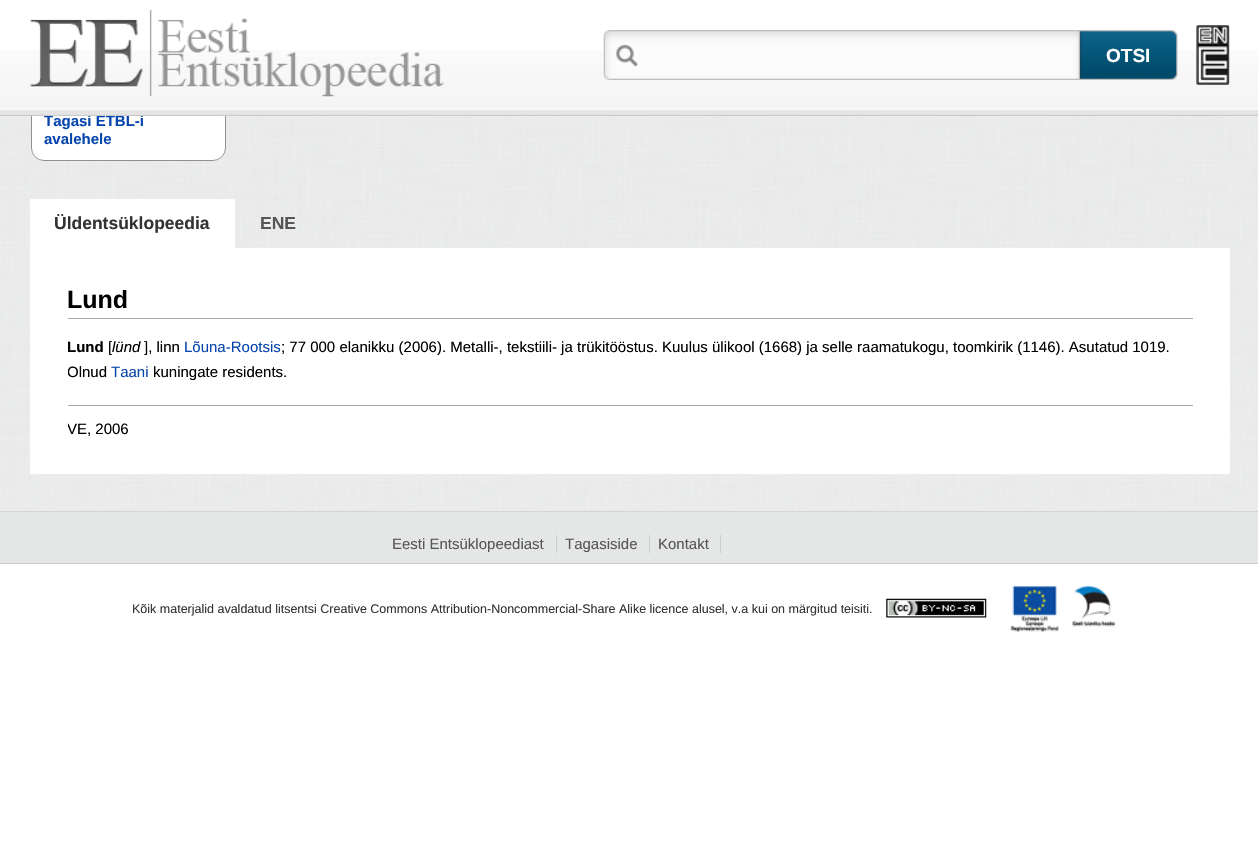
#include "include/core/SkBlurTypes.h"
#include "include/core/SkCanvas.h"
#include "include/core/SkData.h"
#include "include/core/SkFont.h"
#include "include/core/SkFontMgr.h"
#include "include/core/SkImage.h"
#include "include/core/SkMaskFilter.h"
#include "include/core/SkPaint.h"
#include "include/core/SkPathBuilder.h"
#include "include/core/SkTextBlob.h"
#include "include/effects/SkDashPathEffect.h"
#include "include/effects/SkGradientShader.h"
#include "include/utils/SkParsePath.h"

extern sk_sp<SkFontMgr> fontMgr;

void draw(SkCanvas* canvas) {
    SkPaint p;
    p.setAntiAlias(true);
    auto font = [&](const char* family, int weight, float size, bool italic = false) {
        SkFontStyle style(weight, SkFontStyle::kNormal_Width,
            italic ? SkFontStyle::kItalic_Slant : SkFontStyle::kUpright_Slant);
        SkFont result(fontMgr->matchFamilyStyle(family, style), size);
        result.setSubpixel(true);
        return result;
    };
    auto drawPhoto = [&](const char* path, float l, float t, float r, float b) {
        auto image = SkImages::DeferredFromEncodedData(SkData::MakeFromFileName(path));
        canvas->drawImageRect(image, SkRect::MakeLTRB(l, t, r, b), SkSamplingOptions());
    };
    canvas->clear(0xFFFFFFFF);
    drawPhoto("media/1.png", 0, 50, 1258, 117);
    drawPhoto("media/2.png", 30, 10, 444, 98);
    drawPhoto("media/3.png", 603, 30, 1079, 80);
    drawPhoto("media/4.png", 1078, 30, 1178, 80);
    auto font1 = font("Liberation Sans", 700, 19);
    p.setColor(0xFFFFFFFF);
    canvas->drawString("OTSI", 1106, 62, font1, p);
    drawPhoto("media/5.png", 1196, 25, 1230, 85);
    p.setColor(0xFFCCCCCC);
    canvas->drawRect(SkRect::MakeLTRB(0, 511, 1258, 512), p);
    drawPhoto("media/6.png", 0, 116, 1258, 512);
    p.setColor(0xFFFFFFFF);
    canvas->drawPath(SkPathBuilder().moveTo(31, 116).lineTo(226, 116).lineTo(226, 148).cubicTo(226, 155, 220, 161, 213, 161).lineTo(44, 161).cubicTo(37, 161, 31, 155, 31, 148).close().detach(), p);
    canvas->save();
    canvas->clipRect(SkRect::MakeLTRB(0, 116, 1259, 511));
    p.setStyle(SkPaint::kStroke_Style);
    p.setStrokeWidth(1);
    p.setColor(0xFF909090);
    canvas->drawRoundRect(SkRect::MakeLTRB(31.5f, 99.5f, 225.5f, 160.5f), 12.5f, 12.5f, p);
    auto font2 = font("Liberation Sans", 700, 15);
    p.setStyle(SkPaint::kFill_Style);
    p.setColor(0xFF0645AD);
    canvas->drawString("Tagasi ETBL-i", 44, 126, font2, p);
    canvas->restore();
    canvas->drawString("avalehele", 44, 144, font2, p);
    p.setColor(0xFFFFFFFF);
    canvas->drawRect(SkRect::MakeLTRB(30, 199, 235, 248), p);
    auto font3 = font("Liberation Sans", 700, 17.5f);
    p.setColor(0xFF333333);
    canvas->drawString("Üldentsüklopeedia", 54, 229, font3, p);
    p.setColor(0xFF565656);
    canvas->drawString("ENE", 260, 229, font3, p);
    p.setColor(0xFFFFFFFF);
    canvas->drawRect(SkRect::MakeLTRB(30, 248, 1230, 474), p);
    p.setColor(0xFFAAAAAA);
    canvas->drawRect(SkRect::MakeLTRB(68, 318, 1193, 319), p);
    auto font4 = font("Liberation Sans", 700, 25);
    p.setColor(0xFF000000);
    canvas->drawString("Lund", 67, 308, font4, p);
    canvas->save();
    canvas->clipRect(SkRect::MakeLTRB(68, 273, 1193, 449));
    canvas->drawString("Lund", 67, 352, font2, p);
    canvas->restore();
    auto font5 = font("Liberation Sans", 400, 15);
    canvas->drawString("[", 108, 352, font5, p);
    auto font6 = font("Liberation Sans", 400, 15, true);
    canvas->drawString("lünd", 112, 352, font6, p);
    canvas->drawString("], linn", 144, 352, font5, p);
    p.setColor(0xFF0645AD);
    canvas->drawString("Lõuna-Rootsis", 184, 352, font5, p);
    p.setColor(0xFF000000);
    canvas->drawString("; 77 000 elanikku (2006). Metalli-, tekstiili- ja trükitööstus. Kuulus ülikool (1668) ja selle raamatukogu, toomkirik (1146). Asutatud 1019.", 281, 352, font5, p);
    canvas->save();
    canvas->clipRect(SkRect::MakeLTRB(68, 273, 1193, 449));
    canvas->drawString("Olnud", 67, 377, font5, p);
    canvas->restore();
    p.setColor(0xFF0645AD);
    canvas->drawString("Taani", 111, 377, font5, p);
    p.setColor(0xFF000000);
    canvas->drawString("kuningate residents.", 153, 377, font5, p);
    p.setColor(0xFFAAAAAA);
    canvas->drawRect(SkRect::MakeLTRB(68, 405, 1193, 406), p);
    canvas->save();
    canvas->clipRect(SkRect::MakeLTRB(68, 273, 1193, 449));
    p.setColor(0xFF000000);
    canvas->drawString("VE, 2006", 67, 434, font5, p);
    canvas->restore();
    p.setColor(0xFFE5E6E6);
    canvas->drawRect(SkRect::MakeLTRB(0, 512, 1258, 563), p);
    p.setColor(0xFFCCCCCC);
    canvas->drawRect(SkRect::MakeLTRB(0, 563, 1258, 564), p);
    p.setColor(0xFF565656);
    canvas->drawString("Eesti Entsüklopeediast", 392, 549, font5, p);
    canvas->drawString("Tagasiside", 565, 549, font5, p);
    p.setColor(0xFFCCCCCC);
    canvas->drawRect(SkRect::MakeLTRB(556, 535, 557, 553), p);
    p.setColor(0xFF565656);
    canvas->drawString("Kontakt", 658, 549, font5, p);
    p.setColor(0xFFCCCCCC);
    canvas->drawRect(SkRect::MakeLTRB(649, 535, 650, 553), p);
    canvas->drawRect(SkRect::MakeLTRB(720, 535, 721, 553), p);
    auto font7 = font("Liberation Sans", 400, 12.5f);
    p.setColor(0xFF333333);
    canvas->drawString("Kõik materjalid avaldatud litsentsi Creative Commons Attribution-Noncommercial-Share Alike licence alusel, v.a kui on märgitud teisiti.", 132, 613, font7, p);
    drawPhoto("media/7.png", 886, 598, 987, 618);
    drawPhoto("media/8.png", 1010, 586, 1116, 633);
}
